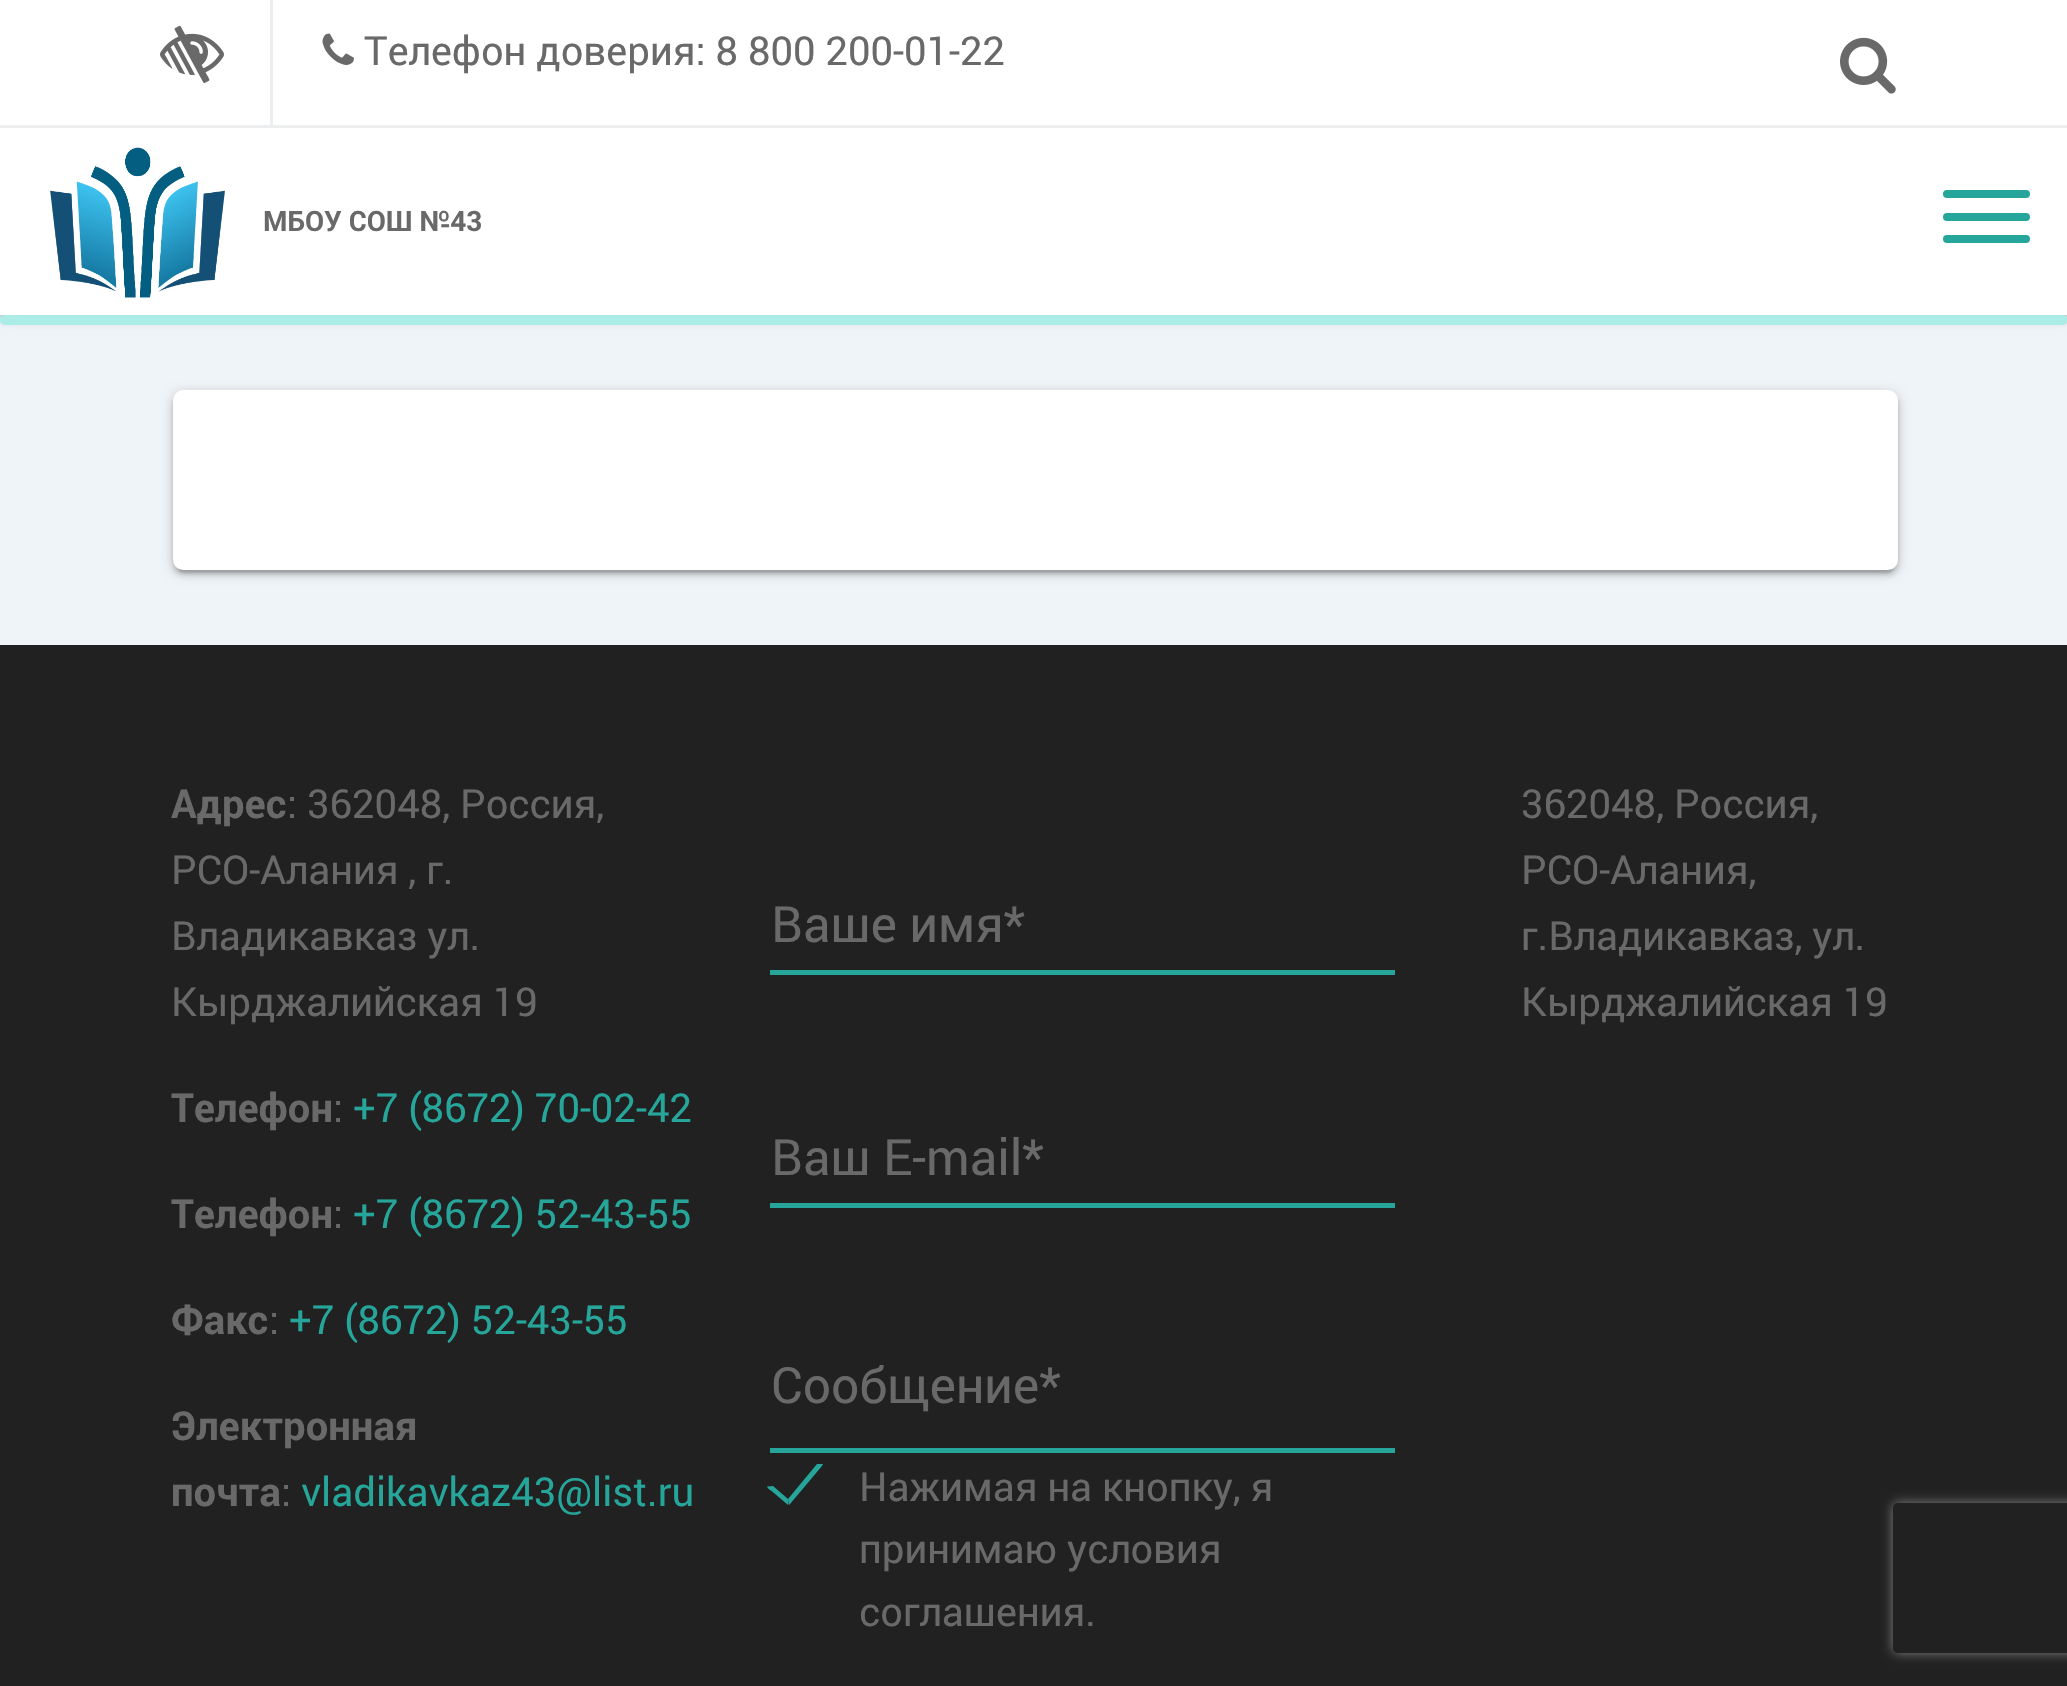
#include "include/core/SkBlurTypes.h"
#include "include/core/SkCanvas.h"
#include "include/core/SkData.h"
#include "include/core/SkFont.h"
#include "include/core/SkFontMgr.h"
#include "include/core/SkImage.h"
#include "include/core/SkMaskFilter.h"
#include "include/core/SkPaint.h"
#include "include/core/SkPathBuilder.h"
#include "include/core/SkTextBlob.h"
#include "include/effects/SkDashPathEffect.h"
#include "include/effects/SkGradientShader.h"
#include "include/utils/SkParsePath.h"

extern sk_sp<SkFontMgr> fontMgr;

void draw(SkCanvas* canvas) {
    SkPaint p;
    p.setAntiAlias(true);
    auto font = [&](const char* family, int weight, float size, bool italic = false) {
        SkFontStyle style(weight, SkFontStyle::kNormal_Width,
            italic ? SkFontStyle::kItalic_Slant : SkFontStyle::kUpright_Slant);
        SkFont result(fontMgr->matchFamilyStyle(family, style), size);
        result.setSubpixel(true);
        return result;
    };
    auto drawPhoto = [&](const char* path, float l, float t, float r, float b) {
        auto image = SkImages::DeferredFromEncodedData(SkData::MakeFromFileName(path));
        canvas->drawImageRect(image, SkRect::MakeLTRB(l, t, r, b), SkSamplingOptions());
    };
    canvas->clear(0xFFEFF4F8);
    p.setColor(0x33000000);
    p.setMaskFilter(SkMaskFilter::MakeBlur(kNormal_SkBlurStyle, 6));
    canvas->drawRect(SkRect::MakeLTRB(0, 130, 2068, 318), p);
    p.setMaskFilter(nullptr);
    p.setColor(0x24000000);
    p.setMaskFilter(SkMaskFilter::MakeBlur(kNormal_SkBlurStyle, 2.5f));
    canvas->drawRect(SkRect::MakeLTRB(0, 133, 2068, 320), p);
    p.setMaskFilter(nullptr);
    p.setColor(0xFFFFFFFF);
    canvas->drawRect(SkRect::MakeLTRB(0, 0, 2067, 125), p);
    p.setColor(0xFFEDEEF0);
    canvas->drawRect(SkRect::MakeLTRB(0, 125, 2067, 128), p);
    drawPhoto("media/1.png", 160, 25, 224, 83);
    canvas->drawRect(SkRect::MakeLTRB(270, 0, 273, 125), p);
    drawPhoto("media/2.png", 322, 33, 354, 65);
    auto font1 = font("Roboto", 400, 40);
    p.setColor(0xFF696969);
    canvas->drawString("Телефон доверия: 8 800 200-01-22", 364, 65, font1, p);
    drawPhoto("media/3.png", 1840, 37, 1896, 94);
    p.setColor(0x1F000000);
    p.setMaskFilter(SkMaskFilter::MakeBlur(kNormal_SkBlurStyle, 1));
    canvas->drawRect(SkRect::MakeLTRB(5, 140, 2063, 318), p);
    p.setMaskFilter(nullptr);
    p.setColor(0xFFFFFFFF);
    canvas->drawRect(SkRect::MakeLTRB(0, 128, 2067, 315), p);
    drawPhoto("media/4.png", 50, 147, 225, 298);
    auto font2 = font("Roboto", 700, 28);
    p.setColor(0xFF696969);
    canvas->drawString("МБОУ СОШ №43", 263, 231, font2, p);
    p.setColor(0xFF26A69A);
    canvas->drawRoundRect(SkRect::MakeLTRB(1943, 190, 2030, 198), 4, 4, p);
    canvas->drawRoundRect(SkRect::MakeLTRB(1943, 213, 2030, 221), 4, 4, p);
    canvas->drawRoundRect(SkRect::MakeLTRB(1943, 235, 2030, 243), 4, 4, p);
    p.setColor(0xFFACECE6);
    canvas->drawRoundRect(SkRect::MakeLTRB(0, 315, 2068, 325), 5, 5, p);
    p.setColor(0x33000000);
    p.setMaskFilter(SkMaskFilter::MakeBlur(kNormal_SkBlurStyle, 6));
    canvas->drawRoundRect(SkRect::MakeLTRB(173, 393, 1898, 573), 10, 10, p);
    p.setMaskFilter(nullptr);
    p.setColor(0x1F000000);
    p.setMaskFilter(SkMaskFilter::MakeBlur(kNormal_SkBlurStyle, 1));
    canvas->drawRoundRect(SkRect::MakeLTRB(178, 403, 1893, 573), 5, 5, p);
    p.setMaskFilter(nullptr);
    p.setColor(0x24000000);
    p.setMaskFilter(SkMaskFilter::MakeBlur(kNormal_SkBlurStyle, 2.5f));
    canvas->drawRoundRect(SkRect::MakeLTRB(173, 395, 1898, 575), 10, 10, p);
    p.setMaskFilter(nullptr);
    p.setColor(0xFFFFFFFF);
    canvas->drawRoundRect(SkRect::MakeLTRB(173, 390, 1898, 570), 10, 10, p);
    p.setColor(0xFF212121);
    canvas->drawRect(SkRect::MakeLTRB(0, 645, 2067, 1686), p);
    auto font3 = font("Roboto", 700, 40);
    p.setColor(0xFF696969);
    canvas->drawString("Адрес", 171, 818, font3, p);
    {
        const struct { const char* s; float x, y; } items[] = {
            {": 362048, Россия,", 287, 818},
            {"РСО-Алания , г.", 171, 884},
            {"Владикавказ ул.", 171, 950},
            {"Кырджалийская 19", 171, 1016},
        };
        for (auto [s, x, y] : items) {
            canvas->drawString(s, x, y, font1, p);
        }
    }
    canvas->drawString("Телефон", 171, 1122, font3, p);
    canvas->drawString(":", 333, 1122, font1, p);
    p.setColor(0xFF26A69A);
    canvas->drawString("+7 (8672) 70-02-42", 353, 1122, font1, p);
    p.setColor(0xFF696969);
    canvas->drawString("Телефон", 171, 1228, font3, p);
    canvas->drawString(":", 333, 1228, font1, p);
    p.setColor(0xFF26A69A);
    canvas->drawString("+7 (8672) 52-43-55", 353, 1228, font1, p);
    p.setColor(0xFF696969);
    canvas->drawString("Факс", 171, 1334, font3, p);
    canvas->drawString(":", 269, 1334, font1, p);
    p.setColor(0xFF26A69A);
    canvas->drawString("+7 (8672) 52-43-55", 289, 1334, font1, p);
    p.setColor(0xFF696969);
    canvas->drawString("Электронная", 171, 1440, font3, p);
    canvas->drawString("почта", 171, 1506, font3, p);
    canvas->drawString(":", 281, 1506, font1, p);
    p.setColor(0xFF26A69A);
    canvas->drawString("vladikavkaz43@list.ru", 301, 1506, font1, p);
    auto font4 = font("Roboto", 400, 50);
    p.setColor(0xFF696969);
    canvas->drawString("Ваше имя*", 771, 942, font4, p);
    p.setColor(0xFF26A69A);
    canvas->drawRect(SkRect::MakeLTRB(770, 970, 1395, 975), p);
    p.setColor(0xFF696969);
    canvas->drawString("Ваш E-mail*", 771, 1175, font4, p);
    p.setColor(0xFF26A69A);
    canvas->drawRect(SkRect::MakeLTRB(770, 1203, 1395, 1208), p);
    p.setColor(0xFF696969);
    canvas->drawString("Сообщение*", 771, 1403, font4, p);
    p.setColor(0xFF26A69A);
    canvas->drawRect(SkRect::MakeLTRB(770, 1448, 1395, 1453), p);
    canvas->drawPath(SkPathBuilder().moveTo(823, 1464).lineTo(822, 1466).lineTo(790, 1504).lineTo(789, 1505).lineTo(788, 1499).lineTo(817, 1464).close().detach(), p);
    canvas->drawPath(SkPathBuilder().moveTo(788.5f, 1504.5f).lineTo(787.5f, 1504.5f).lineTo(771, 1490.5f).cubicTo(770, 1490, 767.5f, 1488, 767, 1486.5f).lineTo(773, 1486).lineTo(788, 1499).close().detach(), p);
    p.setColor(0xFF696969);
    {
        const struct { const char* s; float x, y; } items[] = {
            {"Нажимая на кнопку, я", 859, 1501},
            {"принимаю условия", 859, 1563},
            {"соглашения.", 859, 1626},
            {"362048, Россия,", 1521, 818},
            {"РСО-Алания,", 1521, 884},
            {"г.Владикавказ, ул.", 1521, 950},
            {"Кырджалийская 19", 1521, 1016},
        };
        for (auto [s, x, y] : items) {
            canvas->drawString(s, x, y, font1, p);
        }
    }
    canvas->save();
    canvas->clipPath(SkPathBuilder(SkPathFillType::kEvenOdd).moveTo(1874, 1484).lineTo(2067, 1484).lineTo(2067, 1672).lineTo(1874, 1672).close().moveTo(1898, 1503).lineTo(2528, 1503).cubicTo(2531, 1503, 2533, 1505, 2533, 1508).lineTo(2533, 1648).cubicTo(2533, 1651, 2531, 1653, 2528, 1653).lineTo(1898, 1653).cubicTo(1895, 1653, 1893, 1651, 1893, 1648).lineTo(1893, 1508).cubicTo(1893, 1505, 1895, 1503, 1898, 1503).close().detach(), true);
    p.setColor(0xFF808080);
    p.setMaskFilter(SkMaskFilter::MakeBlur(kNormal_SkBlurStyle, 6));
    canvas->drawRoundRect(SkRect::MakeLTRB(1893, 1503, 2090, 1653), 5, 5, p);
    p.setMaskFilter(nullptr);
    canvas->restore();
}
